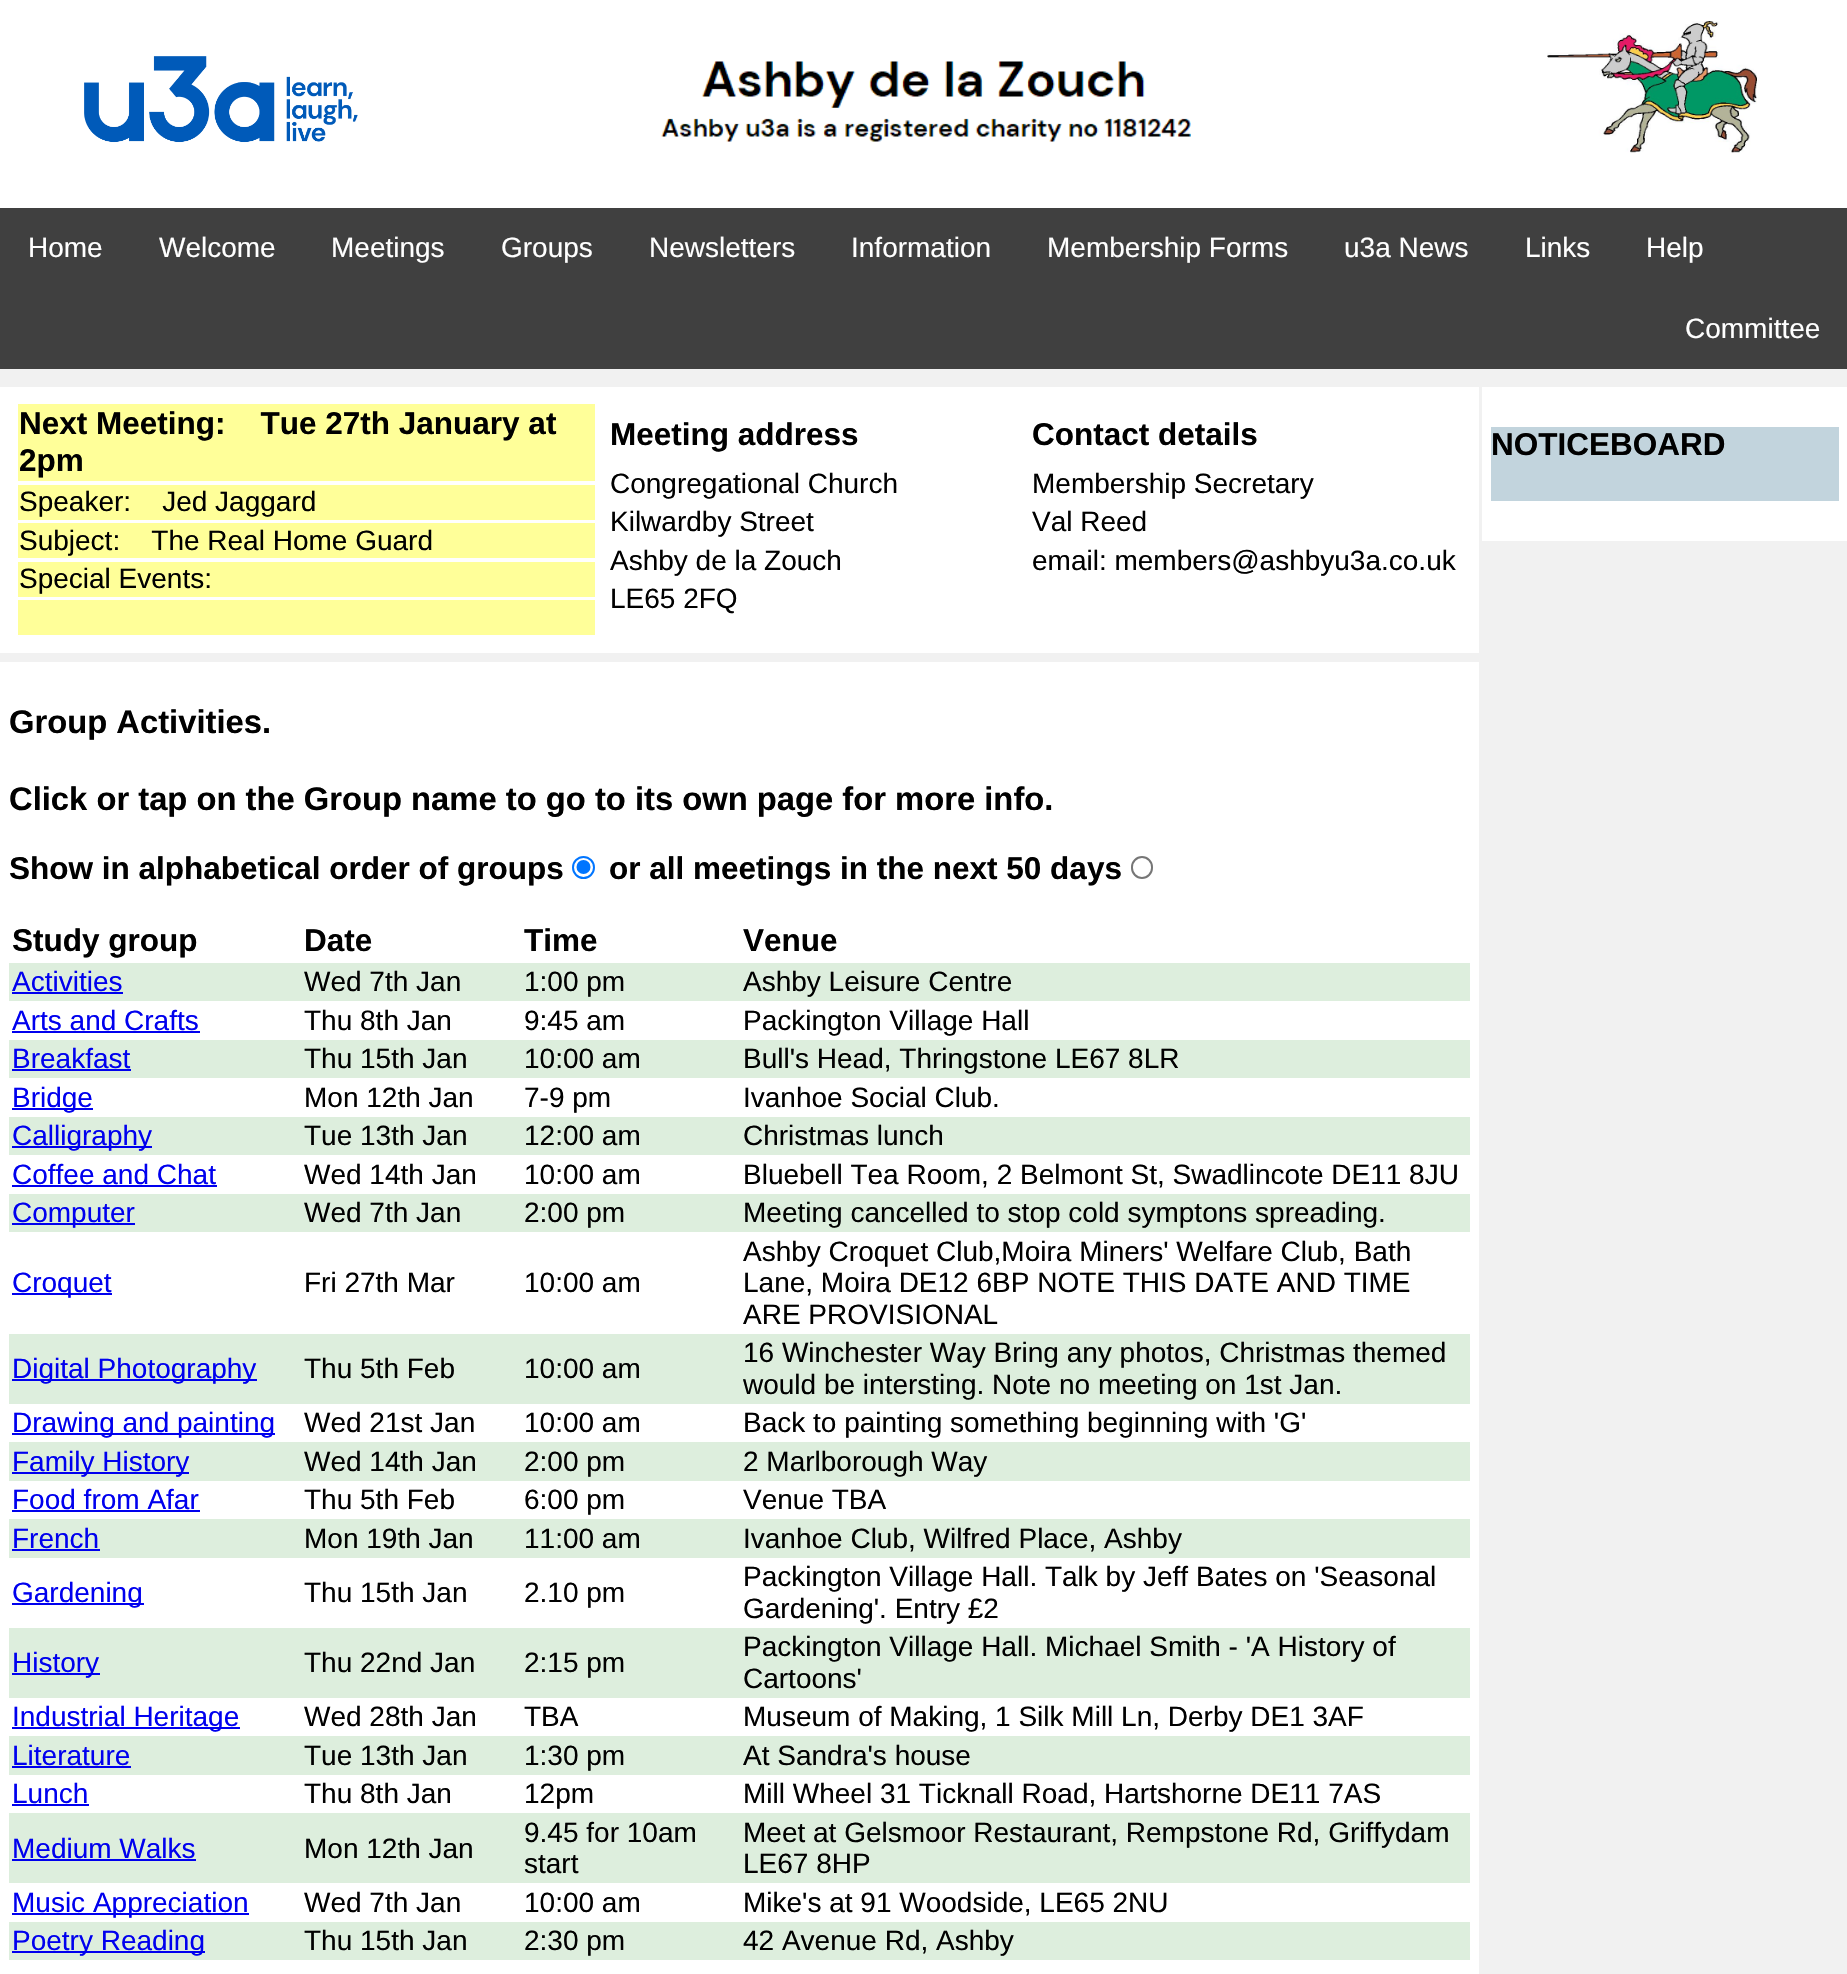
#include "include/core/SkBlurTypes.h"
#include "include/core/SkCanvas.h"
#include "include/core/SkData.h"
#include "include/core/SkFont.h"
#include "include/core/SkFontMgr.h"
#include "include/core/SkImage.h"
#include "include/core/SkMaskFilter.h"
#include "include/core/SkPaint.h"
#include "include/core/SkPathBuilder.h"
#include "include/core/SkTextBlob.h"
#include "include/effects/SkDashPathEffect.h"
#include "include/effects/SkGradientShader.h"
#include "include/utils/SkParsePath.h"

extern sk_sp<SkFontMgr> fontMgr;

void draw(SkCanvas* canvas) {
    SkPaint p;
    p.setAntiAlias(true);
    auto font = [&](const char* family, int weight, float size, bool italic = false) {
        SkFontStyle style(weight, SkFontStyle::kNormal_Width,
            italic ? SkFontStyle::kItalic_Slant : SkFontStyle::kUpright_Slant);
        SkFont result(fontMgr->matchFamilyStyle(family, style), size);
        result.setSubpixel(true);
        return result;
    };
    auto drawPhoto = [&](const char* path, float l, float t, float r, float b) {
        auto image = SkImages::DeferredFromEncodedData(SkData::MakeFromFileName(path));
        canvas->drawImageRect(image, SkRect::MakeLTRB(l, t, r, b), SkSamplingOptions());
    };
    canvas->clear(0xFFF1F1F1);
    p.setColor(0xFFFFFFFF);
    canvas->drawRect(SkRect::MakeLTRB(0, 0, 1847, 208), p);
    drawPhoto("media/1.png", 84, 56, 358, 143);
    drawPhoto("media/2.png", 661, 61, 1191, 142);
    drawPhoto("media/3.png", 1547, 21, 1757, 153);
    p.setColor(0xFF404040);
    canvas->drawRect(SkRect::MakeLTRB(0, 208, 1847, 369), p);
    auto font1 = font("Liberation Sans", 400, 28);
    p.setColor(0xFFFFFFFF);
    {
        const struct { const char* s; float x, y; } items[] = {
            {"Home", 28, 257},
            {"Welcome", 159, 257},
            {"Meetings", 331, 257},
            {"Groups", 501, 257},
            {"Newsletters", 649, 257},
            {"Information", 851, 257},
            {"Membership Forms", 1047, 257},
            {"u3a News", 1344, 257},
            {"Links", 1525, 257},
            {"Help", 1646, 257},
            {"Committee", 1685, 338},
        };
        for (auto [s, x, y] : items) {
            canvas->drawString(s, x, y, font1, p);
        }
    }
    canvas->drawRect(SkRect::MakeLTRB(0, 387, 1479, 653), p);
    p.setColor(0xFFFFFF99);
    canvas->drawRect(SkRect::MakeLTRB(18, 404, 595, 481), p);
    auto font2 = font("Liberation Sans", 700, 31.5f);
    p.setColor(0xFF000000);
    canvas->drawString("Next Meeting:    Tue 27th January at", 19, 434, font2, p);
    canvas->drawString("2pm", 19, 471, font2, p);
    p.setColor(0xFFFFFF99);
    canvas->drawRect(SkRect::MakeLTRB(18, 485, 595, 520), p);
    p.setColor(0xFF000000);
    canvas->drawString("Speaker:    Jed Jaggard", 19, 511, font1, p);
    p.setColor(0xFFFFFF99);
    canvas->drawRect(SkRect::MakeLTRB(18, 523, 595, 558), p);
    p.setColor(0xFF000000);
    canvas->drawString("Subject:    The Real Home Guard", 19, 550, font1, p);
    p.setColor(0xFFFFFF99);
    canvas->drawRect(SkRect::MakeLTRB(18, 562, 595, 597), p);
    p.setColor(0xFF000000);
    canvas->drawString("Special Events:", 19, 588, font1, p);
    p.setColor(0xFFFFFF99);
    canvas->drawRect(SkRect::MakeLTRB(18, 600, 595, 635), p);
    p.setColor(0xFF000000);
    canvas->drawString("Meeting address", 610, 445, font2, p);
    canvas->drawString("Contact details", 1032, 445, font2, p);
    {
        const struct { const char* s; float x, y; } items[] = {
            {"Congregational Church", 610, 493},
            {"Membership Secretary", 1032, 493},
            {"Kilwardby Street", 610, 531},
            {"Val Reed", 1032, 531},
            {"Ashby de la Zouch", 610, 570},
            {"email: members@ashbyu3a.co.uk", 1032, 570},
            {"LE65 2FQ", 610, 608},
        };
        for (auto [s, x, y] : items) {
            canvas->drawString(s, x, y, font1, p);
        }
    }
    p.setColor(0xFFFFFFFF);
    canvas->drawRect(SkRect::MakeLTRB(0, 662, 1479, 1974), p);
    auto font3 = font("Liberation Sans", 700, 32.75f);
    p.setColor(0xFF000000);
    canvas->drawString("Group Activities.", 9, 733, font3, p);
    canvas->drawString("Click or tap on the Group name to go to its own page for more info.", 9, 810, font3, p);
    canvas->drawString("Show in alphabetical order of groups", 9, 879, font2, p);
    p.setStyle(SkPaint::kStroke_Style);
    p.setStrokeWidth(2);
    p.setColor(0xFF0075FF);
    canvas->drawCircle(583.5f, 867.5f, 10.5f, p);
    p.setStyle(SkPaint::kFill_Style);
    canvas->drawCircle(583.5f, 867, 7, p);
    p.setColor(0xFF000000);
    canvas->drawString("or all meetings in the next 50 days", 609, 879, font2, p);
    p.setStyle(SkPaint::kStroke_Style);
    p.setColor(0xFF767676);
    canvas->drawRoundRect(SkRect::MakeLTRB(1132, 857, 1152, 878), 10, 10, p);
    p.setStyle(SkPaint::kFill_Style);
    p.setColor(0xFF000000);
    {
        const struct { const char* s; float x, y; } items[] = {
            {"Study group", 12, 951},
            {"Date", 304, 951},
            {"Time", 524, 951},
            {"Venue", 743, 951},
        };
        for (auto [s, x, y] : items) {
            canvas->drawString(s, x, y, font2, p);
        }
    }
    p.setColor(0xFFDDEEDD);
    canvas->drawRect(SkRect::MakeLTRB(9, 963, 1470, 1001), p);
    p.setColor(0xFF0000EE);
    canvas->drawString("Activities", 12, 991, font1, p);
    canvas->drawRect(SkRect::MakeLTRB(12, 992, 123, 994), p);
    p.setColor(0xFF000000);
    {
        const struct { const char* s; float x, y; } items[] = {
            {"Wed 7th Jan", 304, 991},
            {"1:00 pm", 524, 991},
            {"Ashby Leisure Centre", 743, 991},
        };
        for (auto [s, x, y] : items) {
            canvas->drawString(s, x, y, font1, p);
        }
    }
    p.setColor(0xFF0000EE);
    canvas->drawString("Arts and Crafts", 12, 1030, font1, p);
    canvas->drawRect(SkRect::MakeLTRB(12, 1031, 200, 1033), p);
    p.setColor(0xFF000000);
    {
        const struct { const char* s; float x, y; } items[] = {
            {"Thu 8th Jan", 304, 1030},
            {"9:45 am", 524, 1030},
            {"Packington Village Hall", 743, 1030},
        };
        for (auto [s, x, y] : items) {
            canvas->drawString(s, x, y, font1, p);
        }
    }
    p.setColor(0xFFDDEEDD);
    canvas->drawRect(SkRect::MakeLTRB(9, 1040, 1470, 1078), p);
    p.setColor(0xFF0000EE);
    canvas->drawString("Breakfast", 12, 1068, font1, p);
    canvas->drawRect(SkRect::MakeLTRB(12, 1069, 131, 1071), p);
    p.setColor(0xFF000000);
    {
        const struct { const char* s; float x, y; } items[] = {
            {"Thu 15th Jan", 304, 1068},
            {"10:00 am", 524, 1068},
            {"Bull's Head, Thringstone LE67 8LR", 743, 1068},
        };
        for (auto [s, x, y] : items) {
            canvas->drawString(s, x, y, font1, p);
        }
    }
    p.setColor(0xFF0000EE);
    canvas->drawRect(SkRect::MakeLTRB(12, 1108, 93, 1110), p);
    canvas->drawString("Bridge", 12, 1107, font1, p);
    p.setColor(0xFF000000);
    {
        const struct { const char* s; float x, y; } items[] = {
            {"Mon 12th Jan", 304, 1107},
            {"7-9 pm", 524, 1107},
            {"Ivanhoe Social Club.", 743, 1107},
        };
        for (auto [s, x, y] : items) {
            canvas->drawString(s, x, y, font1, p);
        }
    }
    p.setColor(0xFFDDEEDD);
    canvas->drawRect(SkRect::MakeLTRB(9, 1117, 1470, 1155), p);
    p.setColor(0xFF0000EE);
    canvas->drawRect(SkRect::MakeLTRB(12, 1146, 152, 1148), p);
    canvas->drawString("Calligraphy", 12, 1145, font1, p);
    p.setColor(0xFF000000);
    {
        const struct { const char* s; float x, y; } items[] = {
            {"Tue 13th Jan", 304, 1145},
            {"12:00 am", 524, 1145},
            {"Christmas lunch", 743, 1145},
        };
        for (auto [s, x, y] : items) {
            canvas->drawString(s, x, y, font1, p);
        }
    }
    p.setColor(0xFF0000EE);
    canvas->drawString("Coffee and Chat", 12, 1184, font1, p);
    canvas->drawRect(SkRect::MakeLTRB(12, 1185, 217, 1187), p);
    p.setColor(0xFF000000);
    {
        const struct { const char* s; float x, y; } items[] = {
            {"Wed 14th Jan", 304, 1184},
            {"10:00 am", 524, 1184},
            {"Bluebell Tea Room, 2 Belmont St, Swadlincote DE11 8JU", 743, 1184},
        };
        for (auto [s, x, y] : items) {
            canvas->drawString(s, x, y, font1, p);
        }
    }
    p.setColor(0xFFDDEEDD);
    canvas->drawRect(SkRect::MakeLTRB(9, 1194, 1470, 1232), p);
    p.setColor(0xFF0000EE);
    canvas->drawRect(SkRect::MakeLTRB(12, 1223, 135, 1225), p);
    canvas->drawString("Computer", 12, 1222, font1, p);
    p.setColor(0xFF000000);
    {
        const struct { const char* s; float x, y; } items[] = {
            {"Wed 7th Jan", 304, 1222},
            {"2:00 pm", 524, 1222},
            {"Meeting cancelled to stop cold symptons spreading.", 743, 1222},
        };
        for (auto [s, x, y] : items) {
            canvas->drawString(s, x, y, font1, p);
        }
    }
    p.setColor(0xFF0000EE);
    canvas->drawRect(SkRect::MakeLTRB(12, 1293, 112, 1295), p);
    canvas->drawString("Croquet", 12, 1292, font1, p);
    p.setColor(0xFF000000);
    {
        const struct { const char* s; float x, y; } items[] = {
            {"Fri 27th Mar", 304, 1292},
            {"10:00 am", 524, 1292},
            {"Ashby Croquet Club,Moira Miners' Welfare Club, Bath", 743, 1261},
            {"Lane, Moira DE12 6BP NOTE THIS DATE AND TIME", 743, 1292},
            {"ARE PROVISIONAL", 743, 1324},
        };
        for (auto [s, x, y] : items) {
            canvas->drawString(s, x, y, font1, p);
        }
    }
    p.setColor(0xFFDDEEDD);
    canvas->drawRect(SkRect::MakeLTRB(9, 1334, 1470, 1404), p);
    p.setColor(0xFF0000EE);
    canvas->drawRect(SkRect::MakeLTRB(12, 1379, 257, 1381), p);
    canvas->drawString("Digital Photography", 12, 1378, font1, p);
    p.setColor(0xFF000000);
    {
        const struct { const char* s; float x, y; } items[] = {
            {"Thu 5th Feb", 304, 1378},
            {"10:00 am", 524, 1378},
            {"16 Winchester Way Bring any photos, Christmas themed", 743, 1362},
            {"would be intersting. Note no meeting on 1st Jan.", 743, 1394},
        };
        for (auto [s, x, y] : items) {
            canvas->drawString(s, x, y, font1, p);
        }
    }
    p.setColor(0xFF0000EE);
    canvas->drawRect(SkRect::MakeLTRB(12, 1433, 275, 1435), p);
    canvas->drawString("Drawing and painting", 12, 1432, font1, p);
    p.setColor(0xFF000000);
    {
        const struct { const char* s; float x, y; } items[] = {
            {"Wed 21st Jan", 304, 1432},
            {"10:00 am", 524, 1432},
            {"Back to painting something beginning with 'G'", 743, 1432},
        };
        for (auto [s, x, y] : items) {
            canvas->drawString(s, x, y, font1, p);
        }
    }
    p.setColor(0xFFDDEEDD);
    canvas->drawRect(SkRect::MakeLTRB(9, 1442, 1470, 1481), p);
    p.setColor(0xFF0000EE);
    canvas->drawRect(SkRect::MakeLTRB(12, 1472, 189, 1474), p);
    canvas->drawString("Family History", 12, 1471, font1, p);
    p.setColor(0xFF000000);
    {
        const struct { const char* s; float x, y; } items[] = {
            {"Wed 14th Jan", 304, 1471},
            {"2:00 pm", 524, 1471},
            {"2 Marlborough Way", 743, 1471},
        };
        for (auto [s, x, y] : items) {
            canvas->drawString(s, x, y, font1, p);
        }
    }
    p.setColor(0xFF0000EE);
    canvas->drawString("Food from Afar", 12, 1509, font1, p);
    canvas->drawRect(SkRect::MakeLTRB(12, 1510, 200, 1512), p);
    p.setColor(0xFF000000);
    {
        const struct { const char* s; float x, y; } items[] = {
            {"Thu 5th Feb", 304, 1509},
            {"6:00 pm", 524, 1509},
            {"Venue TBA", 743, 1509},
        };
        for (auto [s, x, y] : items) {
            canvas->drawString(s, x, y, font1, p);
        }
    }
    p.setColor(0xFFDDEEDD);
    canvas->drawRect(SkRect::MakeLTRB(9, 1519, 1470, 1558), p);
    p.setColor(0xFF0000EE);
    canvas->drawString("French", 12, 1548, font1, p);
    canvas->drawRect(SkRect::MakeLTRB(12, 1549, 100, 1551), p);
    p.setColor(0xFF000000);
    {
        const struct { const char* s; float x, y; } items[] = {
            {"Mon 19th Jan", 304, 1548},
            {"11:00 am", 524, 1548},
            {"Ivanhoe Club, Wilfred Place, Ashby", 743, 1548},
        };
        for (auto [s, x, y] : items) {
            canvas->drawString(s, x, y, font1, p);
        }
    }
    p.setColor(0xFF0000EE);
    canvas->drawRect(SkRect::MakeLTRB(12, 1603, 144, 1605), p);
    canvas->drawString("Gardening", 12, 1602, font1, p);
    p.setColor(0xFF000000);
    {
        const struct { const char* s; float x, y; } items[] = {
            {"Thu 15th Jan", 304, 1602},
            {"2.10 pm", 524, 1602},
            {"Packington Village Hall. Talk by Jeff Bates on 'Seasonal", 743, 1586},
            {"Gardening'. Entry £2", 743, 1618},
        };
        for (auto [s, x, y] : items) {
            canvas->drawString(s, x, y, font1, p);
        }
    }
    p.setColor(0xFFDDEEDD);
    canvas->drawRect(SkRect::MakeLTRB(9, 1628, 1470, 1698), p);
    p.setColor(0xFF0000EE);
    canvas->drawRect(SkRect::MakeLTRB(12, 1673, 100, 1675), p);
    canvas->drawString("History", 12, 1672, font1, p);
    p.setColor(0xFF000000);
    {
        const struct { const char* s; float x, y; } items[] = {
            {"Thu 22nd Jan", 304, 1672},
            {"2:15 pm", 524, 1672},
            {"Packington Village Hall. Michael Smith - 'A History of", 743, 1656},
            {"Cartoons'", 743, 1688},
        };
        for (auto [s, x, y] : items) {
            canvas->drawString(s, x, y, font1, p);
        }
    }
    p.setColor(0xFF0000EE);
    canvas->drawRect(SkRect::MakeLTRB(12, 1727, 240, 1729), p);
    canvas->drawString("Industrial Heritage", 12, 1726, font1, p);
    p.setColor(0xFF000000);
    {
        const struct { const char* s; float x, y; } items[] = {
            {"Wed 28th Jan", 304, 1726},
            {"TBA", 524, 1726},
            {"Museum of Making, 1 Silk Mill Ln, Derby DE1 3AF", 743, 1726},
        };
        for (auto [s, x, y] : items) {
            canvas->drawString(s, x, y, font1, p);
        }
    }
    p.setColor(0xFFDDEEDD);
    canvas->drawRect(SkRect::MakeLTRB(9, 1736, 1470, 1775), p);
    p.setColor(0xFF0000EE);
    canvas->drawString("Literature", 12, 1765, font1, p);
    canvas->drawRect(SkRect::MakeLTRB(12, 1766, 131, 1768), p);
    p.setColor(0xFF000000);
    {
        const struct { const char* s; float x, y; } items[] = {
            {"Tue 13th Jan", 304, 1765},
            {"1:30 pm", 524, 1765},
            {"At Sandra's house", 743, 1765},
        };
        for (auto [s, x, y] : items) {
            canvas->drawString(s, x, y, font1, p);
        }
    }
    p.setColor(0xFF0000EE);
    canvas->drawString("Lunch", 12, 1803, font1, p);
    canvas->drawRect(SkRect::MakeLTRB(12, 1804, 89, 1806), p);
    p.setColor(0xFF000000);
    {
        const struct { const char* s; float x, y; } items[] = {
            {"Thu 8th Jan", 304, 1803},
            {"12pm", 524, 1803},
            {"Mill Wheel 31 Ticknall Road, Hartshorne DE11 7AS", 743, 1803},
        };
        for (auto [s, x, y] : items) {
            canvas->drawString(s, x, y, font1, p);
        }
    }
    p.setColor(0xFFDDEEDD);
    canvas->drawRect(SkRect::MakeLTRB(9, 1813, 1470, 1883), p);
    p.setColor(0xFF0000EE);
    canvas->drawString("Medium Walks", 12, 1858, font1, p);
    canvas->drawRect(SkRect::MakeLTRB(12, 1859, 196, 1861), p);
    p.setColor(0xFF000000);
    {
        const struct { const char* s; float x, y; } items[] = {
            {"Mon 12th Jan", 304, 1858},
            {"9.45 for 10am", 524, 1842},
            {"start", 524, 1873},
            {"Meet at Gelsmoor Restaurant, Rempstone Rd, Griffydam", 743, 1842},
            {"LE67 8HP", 743, 1873},
        };
        for (auto [s, x, y] : items) {
            canvas->drawString(s, x, y, font1, p);
        }
    }
    p.setColor(0xFF0000EE);
    canvas->drawRect(SkRect::MakeLTRB(12, 1913, 249, 1915), p);
    canvas->drawString("Music Appreciation", 12, 1912, font1, p);
    p.setColor(0xFF000000);
    {
        const struct { const char* s; float x, y; } items[] = {
            {"Wed 7th Jan", 304, 1912},
            {"10:00 am", 524, 1912},
            {"Mike's at 91 Woodside, LE65 2NU", 743, 1912},
        };
        for (auto [s, x, y] : items) {
            canvas->drawString(s, x, y, font1, p);
        }
    }
    p.setColor(0xFFDDEEDD);
    canvas->drawRect(SkRect::MakeLTRB(9, 1922, 1470, 1960), p);
    p.setColor(0xFF0000EE);
    canvas->drawRect(SkRect::MakeLTRB(12, 1951, 205, 1953), p);
    canvas->drawString("Poetry Reading", 12, 1950, font1, p);
    p.setColor(0xFF000000);
    {
        const struct { const char* s; float x, y; } items[] = {
            {"Thu 15th Jan", 304, 1950},
            {"2:30 pm", 524, 1950},
            {"42 Avenue Rd, Ashby", 743, 1950},
        };
        for (auto [s, x, y] : items) {
            canvas->drawString(s, x, y, font1, p);
        }
    }
    p.setColor(0xFFFFFFFF);
    canvas->drawRect(SkRect::MakeLTRB(1482, 387, 1847, 541), p);
    p.setColor(0xFFC2D4DD);
    canvas->drawRect(SkRect::MakeLTRB(1491, 427, 1839, 501), p);
    p.setColor(0xFF000000);
    canvas->drawString("NOTICEBOARD", 1491, 455, font2, p);
}
